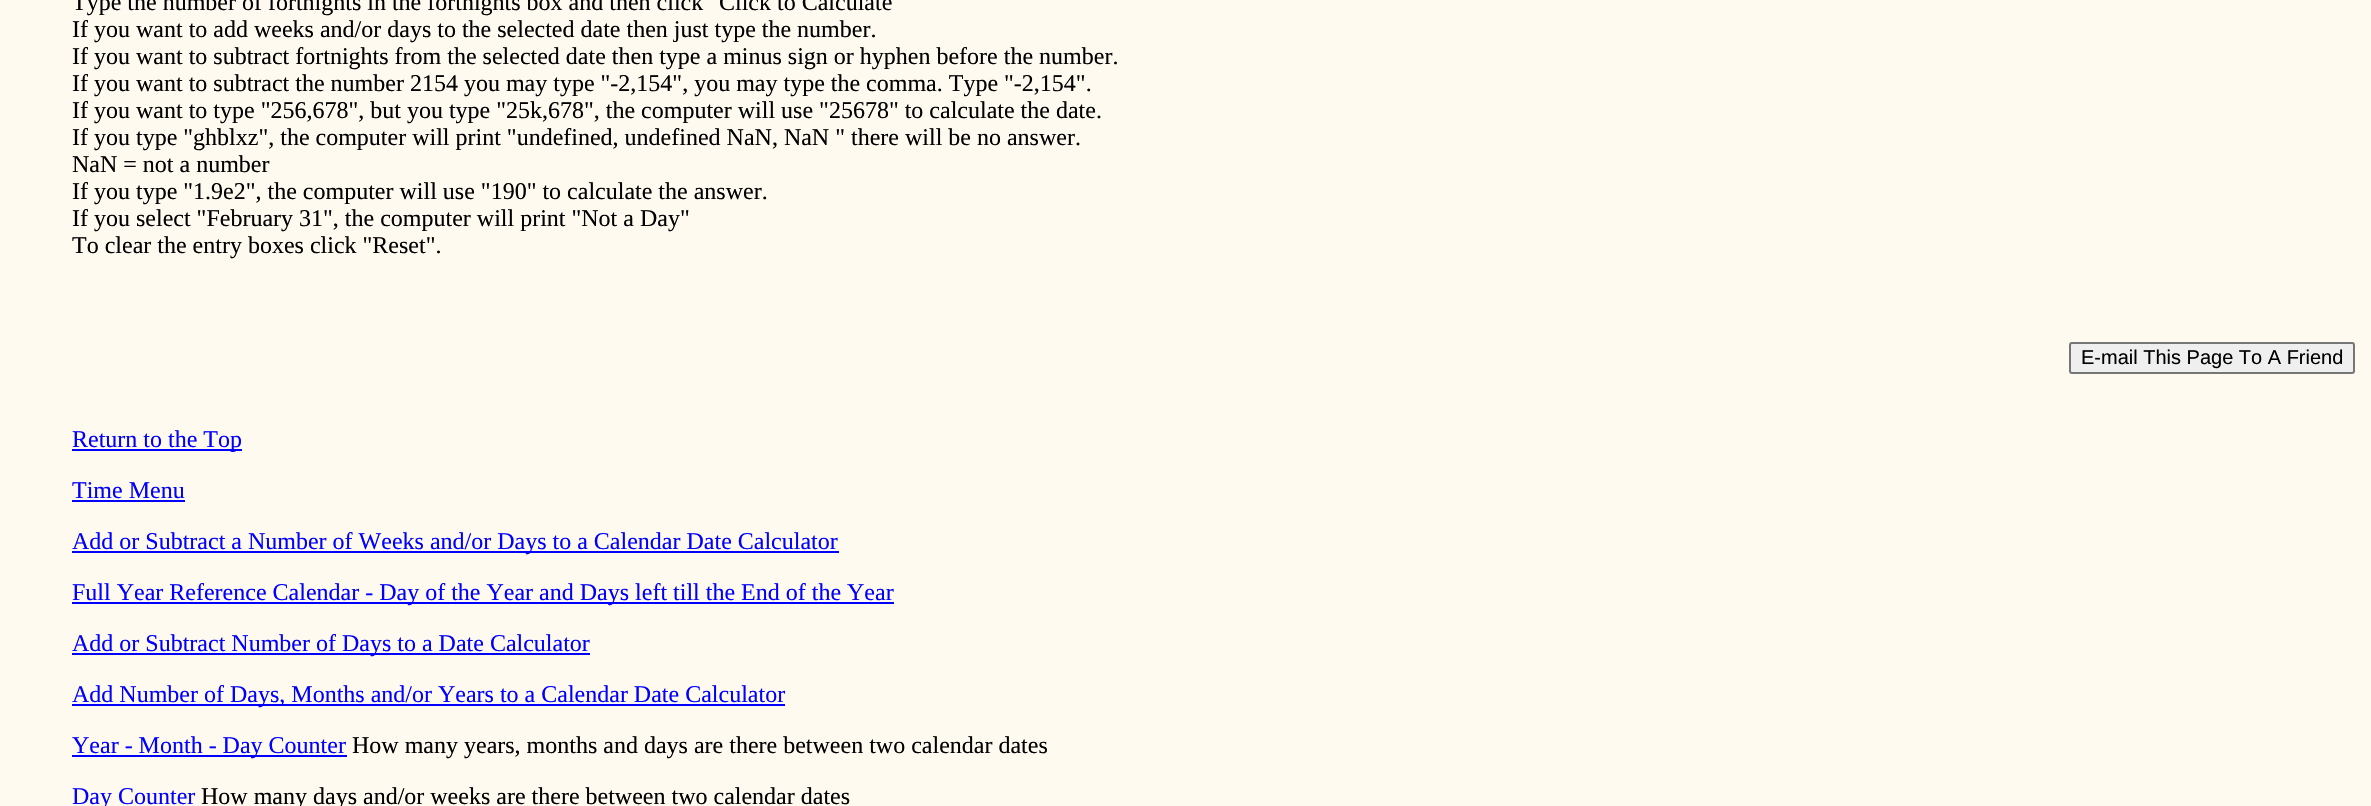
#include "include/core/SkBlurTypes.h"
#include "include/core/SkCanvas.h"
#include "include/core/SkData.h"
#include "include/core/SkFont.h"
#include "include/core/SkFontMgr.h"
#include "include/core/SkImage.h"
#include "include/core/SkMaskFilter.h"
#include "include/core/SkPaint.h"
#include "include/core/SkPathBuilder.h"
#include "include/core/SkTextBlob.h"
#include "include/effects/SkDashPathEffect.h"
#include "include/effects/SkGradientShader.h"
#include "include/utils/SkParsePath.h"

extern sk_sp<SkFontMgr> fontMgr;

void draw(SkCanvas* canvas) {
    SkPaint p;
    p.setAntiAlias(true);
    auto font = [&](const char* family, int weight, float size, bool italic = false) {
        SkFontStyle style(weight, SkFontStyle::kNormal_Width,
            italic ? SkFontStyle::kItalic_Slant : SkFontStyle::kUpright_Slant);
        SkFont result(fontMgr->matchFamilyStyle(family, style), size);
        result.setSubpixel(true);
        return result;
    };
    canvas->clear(0xFFFFFAF0);
    auto font1 = font("Liberation Serif", 400, 24);
    p.setColor(0xFF000000);
    {
        const struct { const char* s; float x, y; } items[] = {
            {"Type the number of fortnights in the fortnights box and then click \"Click to Calculate", 72, 10},
            {"If you want to add weeks and/or days to the selected date then just type the number.", 72, 37},
            {"If you want to subtract fortnights from the selected date then type a minus sign or hyphen before the number.", 72, 64},
            {"If you want to subtract the number 2154 you may type \"-2,154\", you may type the comma. Type \"-2,154\".", 72, 91},
            {"If you want to type \"256,678\", but you type \"25k,678\", the computer will use \"25678\" to calculate the date.", 72, 118},
            {"If you type \"ghblxz\", the computer will print \"undefined, undefined NaN, NaN \" there will be no answer.", 72, 145},
            {"NaN = not a number", 72, 172},
            {"If you type \"1.9e2\", the computer will use \"190\" to calculate the answer.", 72, 199},
            {"If you select \"February 31\", the computer will print \"Not a Day\"", 72, 226},
            {"To clear the entry boxes click \"Reset\".", 72, 253},
        };
        for (auto [s, x, y] : items) {
            canvas->drawString(s, x, y, font1, p);
        }
    }
    p.setColor(0xFFEFEFEF);
    canvas->drawRoundRect(SkRect::MakeLTRB(2070, 343, 2354, 373), 2, 2, p);
    p.setStyle(SkPaint::kStroke_Style);
    p.setStrokeWidth(2);
    p.setColor(0xFF767676);
    canvas->drawRoundRect(SkRect::MakeLTRB(2070, 343, 2354, 373), 2, 2, p);
    auto font2 = font("Liberation Sans", 400, 20);
    p.setStyle(SkPaint::kFill_Style);
    p.setColor(0xFF000000);
    canvas->drawString("E-mail This Page To A Friend", 2081, 364, font2, p);
    p.setColor(0xFF0000FF);
    canvas->drawRect(SkRect::MakeLTRB(72, 449, 242, 451), p);
    canvas->drawString("Return to the Top", 72, 447, font1, p);
    canvas->drawString("Time Menu", 72, 498, font1, p);
    canvas->drawRect(SkRect::MakeLTRB(72, 500, 185, 502), p);
    canvas->drawRect(SkRect::MakeLTRB(72, 551, 839, 553), p);
    canvas->drawString("Add or Subtract a Number of Weeks and/or Days to a Calendar Date Calculator", 72, 549, font1, p);
    canvas->drawRect(SkRect::MakeLTRB(72, 602, 894, 604), p);
    canvas->drawString("Full Year Reference Calendar - Day of the Year and Days left till the End of the Year", 72, 600, font1, p);
    canvas->drawRect(SkRect::MakeLTRB(72, 653, 590, 655), p);
    canvas->drawString("Add or Subtract Number of Days to a Date Calculator", 72, 651, font1, p);
    canvas->drawRect(SkRect::MakeLTRB(72, 704, 785, 706), p);
    canvas->drawString("Add Number of Days, Months and/or Years to a Calendar Date Calculator", 72, 702, font1, p);
    canvas->drawRect(SkRect::MakeLTRB(72, 755, 347, 757), p);
    canvas->drawString("Year - Month - Day Counter", 72, 753, font1, p);
    p.setColor(0xFF000000);
    canvas->drawString("How many years, months and days are there between two calendar dates", 352, 753, font1, p);
    p.setColor(0xFF0000FF);
    canvas->drawString("Day Counter", 72, 804, font1, p);
    p.setColor(0xFF000000);
    canvas->drawString("How many days and/or weeks are there between two calendar dates", 201, 804, font1, p);
}
